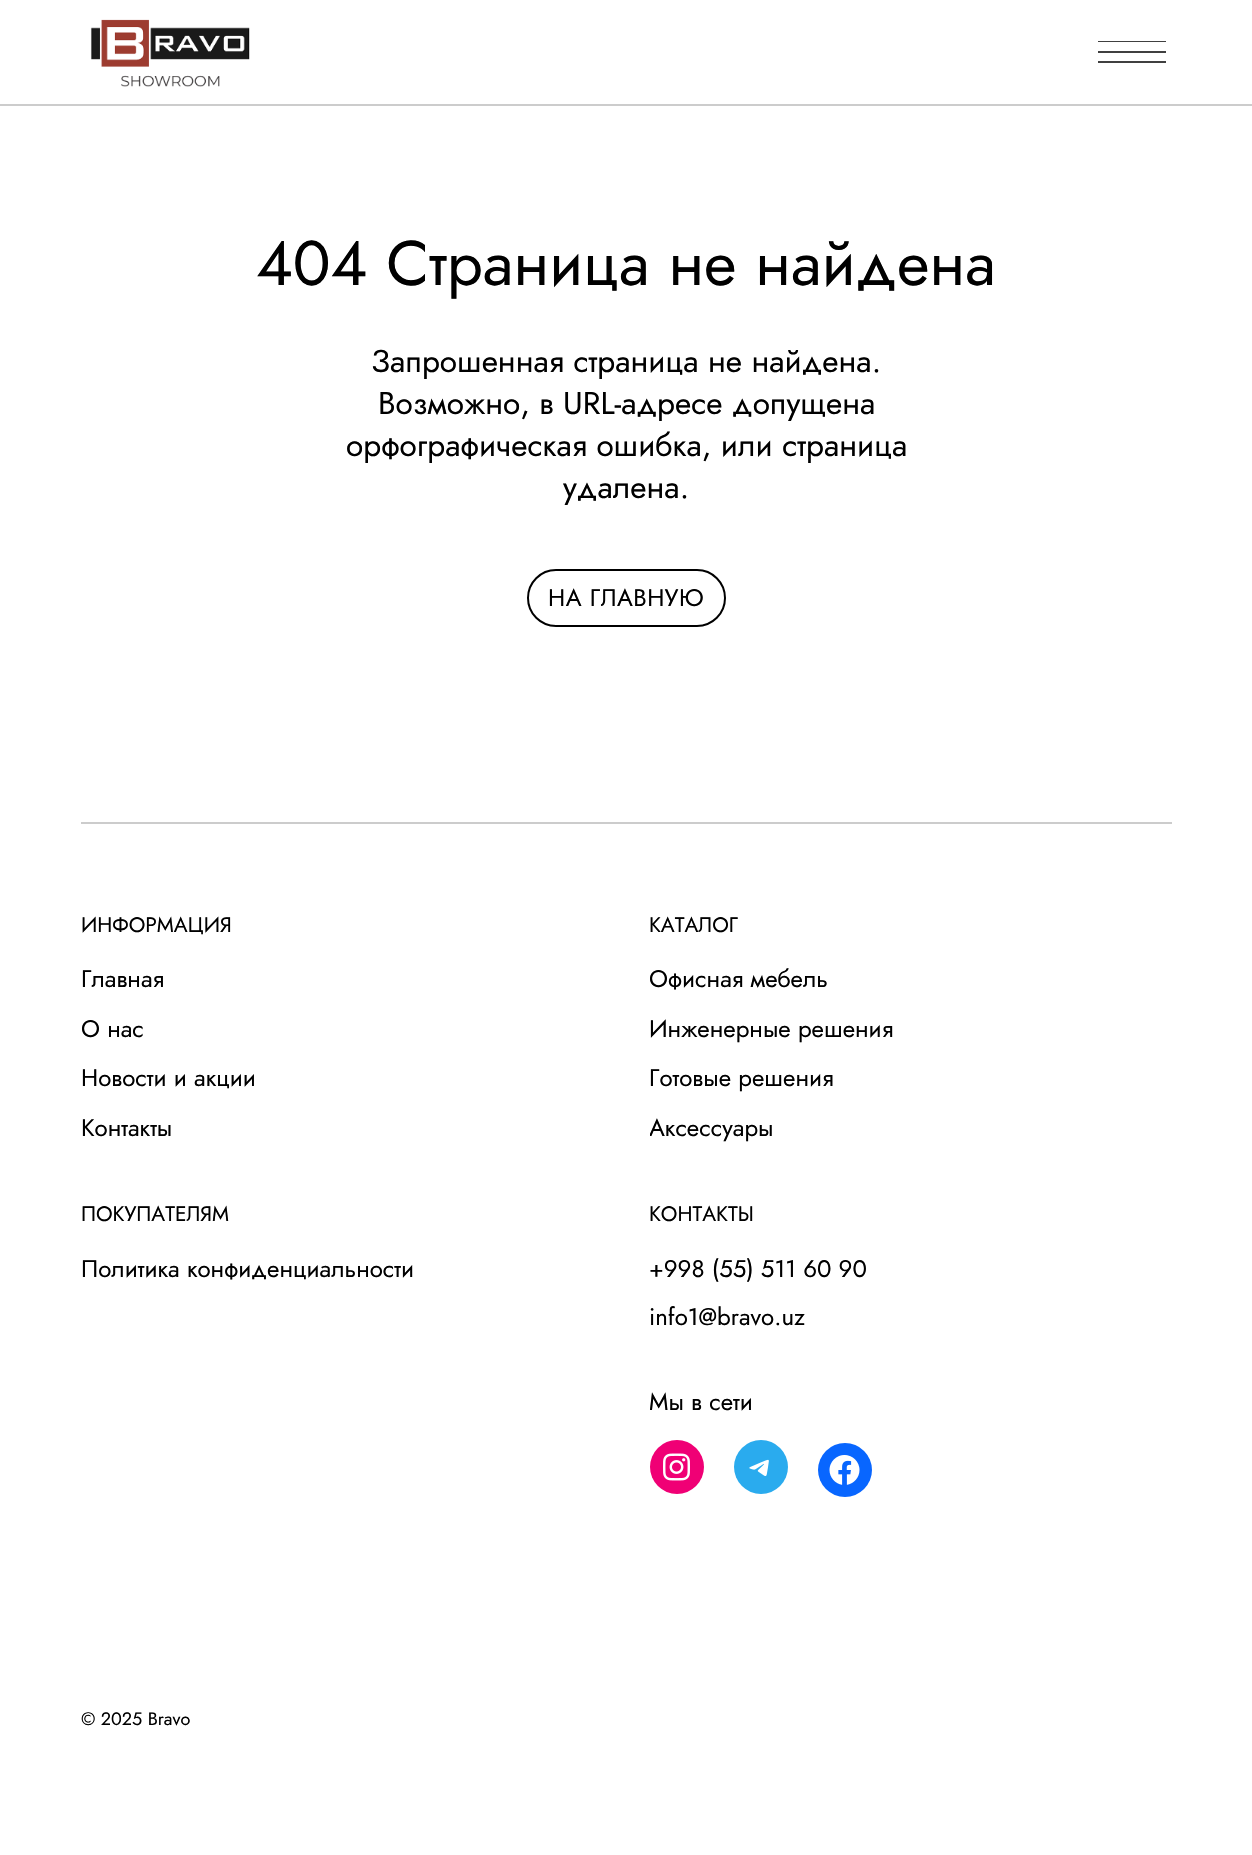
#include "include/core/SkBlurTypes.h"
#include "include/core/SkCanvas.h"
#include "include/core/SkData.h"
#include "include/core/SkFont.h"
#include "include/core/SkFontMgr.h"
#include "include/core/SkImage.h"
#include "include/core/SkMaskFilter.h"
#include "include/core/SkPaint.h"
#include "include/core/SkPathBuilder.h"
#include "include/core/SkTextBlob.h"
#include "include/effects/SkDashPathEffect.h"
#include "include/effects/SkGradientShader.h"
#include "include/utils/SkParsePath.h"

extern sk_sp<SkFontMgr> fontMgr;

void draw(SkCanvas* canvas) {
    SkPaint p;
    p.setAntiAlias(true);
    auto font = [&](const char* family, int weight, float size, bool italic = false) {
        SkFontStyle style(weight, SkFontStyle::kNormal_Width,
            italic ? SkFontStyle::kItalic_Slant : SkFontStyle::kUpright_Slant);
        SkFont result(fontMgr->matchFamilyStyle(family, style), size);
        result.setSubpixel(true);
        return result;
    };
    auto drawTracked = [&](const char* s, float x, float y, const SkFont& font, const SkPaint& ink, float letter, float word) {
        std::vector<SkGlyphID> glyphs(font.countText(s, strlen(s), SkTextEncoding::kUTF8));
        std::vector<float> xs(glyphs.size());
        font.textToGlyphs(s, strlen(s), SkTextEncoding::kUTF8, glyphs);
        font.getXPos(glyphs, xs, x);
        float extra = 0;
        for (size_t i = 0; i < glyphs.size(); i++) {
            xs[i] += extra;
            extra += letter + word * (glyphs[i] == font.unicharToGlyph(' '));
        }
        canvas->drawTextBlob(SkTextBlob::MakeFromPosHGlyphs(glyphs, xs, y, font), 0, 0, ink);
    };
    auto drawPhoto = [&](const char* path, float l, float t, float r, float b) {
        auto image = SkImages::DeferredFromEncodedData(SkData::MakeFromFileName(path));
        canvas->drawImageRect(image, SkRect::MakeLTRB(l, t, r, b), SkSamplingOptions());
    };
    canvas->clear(0xFFFFFFFF);
    p.setColor(0xFFCCCCCC);
    canvas->drawRect(SkRect::MakeLTRB(0, 104, 1252, 106), p);
    drawPhoto("media/1.png", 90, 19, 250, 87);
    {
        const struct { float l, t, r, b; SkColor color; } items[] = {
            {1098, 41, 1166, 42, 0xFF404040},
            {1098, 51, 1166, 53, 0xFF404040},
            {1098, 61, 1166, 63, 0xFF404040},
        };
        for (auto [l, t, r, b, color] : items) {
            p.setColor(color);
            canvas->drawRect(SkRect::MakeLTRB(l, t, r, b), p);
        }
    }
    auto font1 = font("Jost", 400, 63);
    p.setColor(0xFF000000);
    canvas->drawString("404 Страница не найдена", 256, 285, font1, p);
    auto font2 = font("Jost", 400, 31.5f);
    {
        const struct { const char* s; float x, y; } items[] = {
            {"Запрошенная страница не найдена.", 371, 372},
            {"Возможно, в URL-адресе допущена", 378, 414},
            {"орфографическая ошибка, или страница", 346, 456},
            {"удалена.", 563, 498},
        };
        for (auto [s, x, y] : items) {
            canvas->drawString(s, x, y, font2, p);
        }
    }
    p.setStyle(SkPaint::kStroke_Style);
    p.setStrokeWidth(2);
    canvas->drawRoundRect(SkRect::MakeLTRB(528, 570, 725, 626), 28, 28, p);
    auto font3 = font("Jost", 400, 24);
    p.setStyle(SkPaint::kFill_Style);
    drawTracked("НА ГЛАВНУЮ", 548, 606, font3, p, 0.5f, 0);
    p.setColor(0xFFCCCCCC);
    canvas->drawRect(SkRect::MakeLTRB(81, 822, 1172, 824), p);
    auto font4 = font("Jost", 400, 21);
    p.setColor(0xFF000000);
    canvas->drawString("ИНФОРМАЦИЯ", 81, 932, font4, p);
    {
        const struct { const char* s; float x, y; } items[] = {
            {"Главная", 81, 987},
            {"О нас", 81, 1037},
            {"Новости и акции", 81, 1086},
            {"Контакты", 81, 1136},
        };
        for (auto [s, x, y] : items) {
            canvas->drawString(s, x, y, font3, p);
        }
    }
    canvas->drawString("КАТАЛОГ", 649, 932, font4, p);
    canvas->save();
    canvas->clipRect(SkRect::MakeLTRB(650, 963, 1172, 996));
    canvas->drawString("Офисная мебель", 649, 987, font3, p);
    canvas->restore();
    canvas->drawString("Инженерные решения", 649, 1037, font3, p);
    canvas->drawString("Готовые решения", 649, 1086, font3, p);
    canvas->save();
    canvas->clipRect(SkRect::MakeLTRB(650, 1112, 1172, 1145));
    canvas->drawString("Аксессуары", 649, 1136, font3, p);
    canvas->restore();
    canvas->drawString("ПОКУПАТЕЛЯМ", 81, 1221, font4, p);
    canvas->drawString("Политика конфиденциальности", 81, 1277, font3, p);
    canvas->drawString("КОНТАКТЫ", 649, 1221, font4, p);
    {
        const struct { const char* s; float x, y; } items[] = {
            {"+998 (55) 511 60 90", 649, 1277},
            {"info1@bravo.uz", 649, 1325},
            {"Мы в сети", 649, 1410},
        };
        for (auto [s, x, y] : items) {
            canvas->drawString(s, x, y, font3, p);
        }
    }
    p.setColor(0xFFF00075);
    canvas->drawCircle(677, 1467, 27, p);
    drawPhoto("media/2.png", 663, 1453, 690, 1481);
    p.setColor(0xFF2AABEE);
    canvas->drawCircle(761, 1467, 27, p);
    drawPhoto("media/3.png", 749, 1459, 769, 1476);
    p.setColor(0xFF0866FF);
    canvas->drawCircle(845, 1470, 27, p);
    drawPhoto("media/4.png", 829, 1455, 860, 1485);
    auto font5 = font("Jost", 400, 18);
    p.setColor(0xFF000000);
    canvas->drawString("© 2025 Bravo", 81, 1725, font5, p);
}
